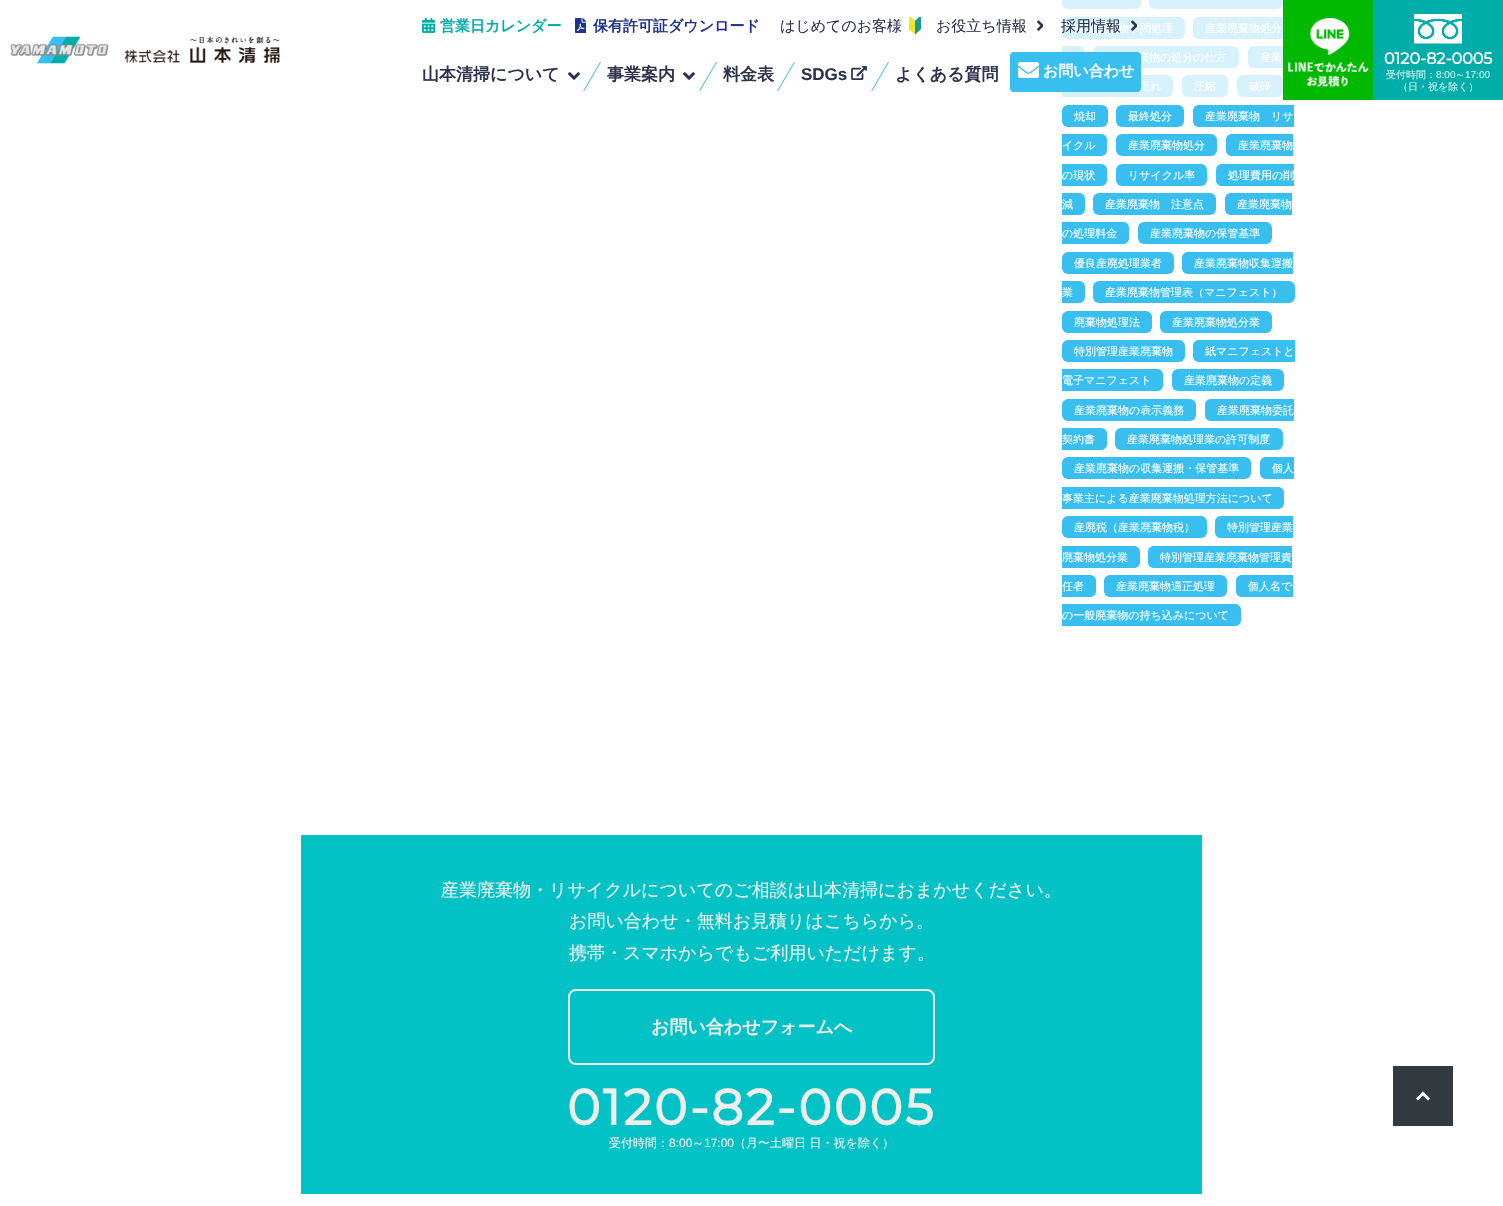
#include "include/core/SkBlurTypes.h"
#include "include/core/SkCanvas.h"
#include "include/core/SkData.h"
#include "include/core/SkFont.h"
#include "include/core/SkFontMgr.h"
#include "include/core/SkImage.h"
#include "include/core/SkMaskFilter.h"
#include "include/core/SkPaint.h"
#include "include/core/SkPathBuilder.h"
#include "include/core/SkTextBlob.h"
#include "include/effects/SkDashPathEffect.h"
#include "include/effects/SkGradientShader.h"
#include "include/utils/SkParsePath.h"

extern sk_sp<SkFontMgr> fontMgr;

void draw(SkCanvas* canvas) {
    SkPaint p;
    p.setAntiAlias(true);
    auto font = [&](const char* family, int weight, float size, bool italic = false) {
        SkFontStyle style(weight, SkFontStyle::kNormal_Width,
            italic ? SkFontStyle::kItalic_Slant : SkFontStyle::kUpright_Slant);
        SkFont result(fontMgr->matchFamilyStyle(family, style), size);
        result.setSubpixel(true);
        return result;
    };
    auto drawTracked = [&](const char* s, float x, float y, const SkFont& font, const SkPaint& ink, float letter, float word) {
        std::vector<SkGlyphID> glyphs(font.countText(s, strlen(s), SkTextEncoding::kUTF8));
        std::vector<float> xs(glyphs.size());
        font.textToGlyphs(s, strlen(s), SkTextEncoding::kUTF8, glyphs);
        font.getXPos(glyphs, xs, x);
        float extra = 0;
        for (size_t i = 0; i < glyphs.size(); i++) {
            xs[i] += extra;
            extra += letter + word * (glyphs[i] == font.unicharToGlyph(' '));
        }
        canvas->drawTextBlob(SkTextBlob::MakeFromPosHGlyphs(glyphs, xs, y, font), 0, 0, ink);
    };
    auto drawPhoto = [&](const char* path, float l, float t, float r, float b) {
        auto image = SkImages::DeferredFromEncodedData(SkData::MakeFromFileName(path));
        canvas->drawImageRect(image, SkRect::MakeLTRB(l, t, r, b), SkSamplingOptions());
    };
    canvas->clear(0xFFFFFFFF);
    drawPhoto("media/1.png", 10, 36, 280, 64);
    drawPhoto("media/2.png", 422, 18, 435, 33);
    auto font1 = font("WenQuanYi Zen Hei", 700, 15);
    p.setColor(0xFF00ADA9);
    canvas->drawString("営業日カレンダー", 440, 31, font1, p);
    drawPhoto("media/3.png", 575, 18, 586, 33);
    p.setColor(0xFF1F338B);
    canvas->drawString("保有許可証ダウンロード", 593, 31, font1, p);
    auto font2 = font("WenQuanYi Zen Hei", 500, 15);
    p.setColor(0xFF2D324D);
    canvas->drawString("はじめてのお客様", 780, 31, font2, p);
    drawPhoto("media/4.png", 909, 17, 921, 35);
    canvas->drawString("お役立ち情報", 936, 31, font2, p);
    drawPhoto("media/5.png", 1037, 20, 1043, 31);
    p.setColor(0xFFD7F2FC);
    canvas->drawRoundRect(SkRect::MakeLTRB(1062, 17, 1185, 39), 6, 6, p);
    auto font3 = font("WenQuanYi Zen Hei", 500, 11);
    p.setColor(0xFFFFFFFF);
    canvas->drawString("産業廃棄物中間処理", 1074, 32, font3, p);
    p.setColor(0xFF2D324D);
    canvas->drawString("採用情報", 1061, 31, font2, p);
    drawPhoto("media/6.png", 1131, 20, 1137, 31);
    auto font4 = font("WenQuanYi Zen Hei", 700, 17);
    canvas->drawString("山本清掃について", 422, 80, font4, p);
    drawPhoto("media/7.png", 568, 72, 580, 80);
    canvas->save();
    canvas->clipRect(SkRect::MakeLTRB(581, 62, 601, 91));
    p.setColor(0xFF37BEF0);
    canvas->drawPath(SkPathBuilder().moveTo(581.5f, 94.5f).lineTo(581, 94.5f).lineTo(600, 62).lineTo(600.5f, 62).close().detach(), p);
    p.setColor(0xFF00ADA9);
    canvas->drawPath(SkPathBuilder().moveTo(582, 94.5f).lineTo(581.5f, 94.5f).lineTo(600.5f, 62).lineTo(601, 62).close().detach(), p);
    canvas->restore();
    p.setColor(0xFF2D324D);
    canvas->drawString("事業案内", 607, 80, font4, p);
    drawPhoto("media/7.png", 683, 72, 695, 80);
    canvas->save();
    canvas->clipRect(SkRect::MakeLTRB(697, 62, 717, 91));
    p.setColor(0xFF37BEF0);
    canvas->drawPath(SkPathBuilder().moveTo(697.5f, 94.5f).lineTo(697, 94.5f).lineTo(716, 62).lineTo(716.5f, 62).close().detach(), p);
    p.setColor(0xFF00ADA9);
    canvas->drawPath(SkPathBuilder().moveTo(698, 94.5f).lineTo(697.5f, 94.5f).lineTo(716.5f, 62).lineTo(717, 62).close().detach(), p);
    canvas->restore();
    p.setColor(0xFF2D324D);
    canvas->drawString("料金表", 723, 80, font4, p);
    canvas->save();
    canvas->clipRect(SkRect::MakeLTRB(775, 62, 795, 91));
    p.setColor(0xFF37BEF0);
    canvas->drawPath(SkPathBuilder().moveTo(775.5f, 94.5f).lineTo(775, 94.5f).lineTo(794, 62).lineTo(794.5f, 62).close().detach(), p);
    p.setColor(0xFF00ADA9);
    canvas->drawPath(SkPathBuilder().moveTo(776, 94.5f).lineTo(775.5f, 94.5f).lineTo(794.5f, 62).lineTo(795, 62).close().detach(), p);
    canvas->restore();
    auto font5 = font("Liberation Sans", 700, 17);
    p.setColor(0xFF2D324D);
    canvas->drawString("SDGs", 801, 80, font5, p);
    drawPhoto("media/8.png", 851, 66, 867, 80);
    canvas->save();
    canvas->clipRect(SkRect::MakeLTRB(869, 62, 889, 91));
    p.setColor(0xFF37BEF0);
    canvas->drawPath(SkPathBuilder().moveTo(869.5f, 94.5f).lineTo(869, 94.5f).lineTo(888, 62).lineTo(888.5f, 62).close().detach(), p);
    p.setColor(0xFF00ADA9);
    canvas->drawPath(SkPathBuilder().moveTo(870, 94.5f).lineTo(869.5f, 94.5f).lineTo(888.5f, 62).lineTo(889, 62).close().detach(), p);
    canvas->restore();
    p.setColor(0xFF2D324D);
    canvas->drawString("よくある質問", 895, 80, font4, p);
    p.setColor(0xFFD7F2FC);
    canvas->drawPath(SkPathBuilder().moveTo(1062, 46).lineTo(1079, 46).cubicTo(1082.5f, 46, 1085, 48.5f, 1085, 52).lineTo(1085, 62).cubicTo(1085, 65.5f, 1082.5f, 68, 1079, 68).lineTo(1062, 68).close().detach(), p);
    canvas->drawRoundRect(SkRect::MakeLTRB(1093, 46, 1239, 68), 6, 6, p);
    p.setColor(0xFFFFFFFF);
    canvas->drawString("棄物の処分の仕方", 1138, 61, font3, p);
    p.setColor(0xFFD7F2FC);
    canvas->drawPath(SkPathBuilder().moveTo(1062, 75).lineTo(1167, 75).cubicTo(1170.5f, 75, 1173, 77.5f, 1173, 81).lineTo(1173, 91).cubicTo(1173, 94.5f, 1170.5f, 97, 1167, 97).lineTo(1062, 97).close().detach(), p);
    p.setColor(0xFFFFFFFF);
    canvas->drawString("流れ", 1139, 90, font3, p);
    p.setColor(0xFF38BEEF);
    canvas->drawRoundRect(SkRect::MakeLTRB(1010, 52, 1141, 92), 4, 4, p);
    drawPhoto("media/9.png", 1018, 62, 1039, 78);
    p.setColor(0xFFFFFFFF);
    canvas->drawString("お問い合わせ", 1043, 76, font1, p);
    p.setColor(0xFFD7F2FC);
    canvas->drawPath(SkPathBuilder().moveTo(1199, 17).lineTo(1293, 17).lineTo(1293, 39).lineTo(1199, 39).cubicTo(1195.5f, 39, 1193, 36.5f, 1193, 33).lineTo(1193, 23).cubicTo(1193, 19.5f, 1195.5f, 17, 1199, 17).close().detach(), p);
    canvas->drawPath(SkPathBuilder().moveTo(1254, 46).lineTo(1293, 46).lineTo(1293, 68).lineTo(1254, 68).cubicTo(1250.5f, 68, 1248, 65.5f, 1248, 62).lineTo(1248, 52).cubicTo(1248, 48.5f, 1250.5f, 46, 1254, 46).close().detach(), p);
    p.setColor(0xFF00B900);
    canvas->drawRect(SkRect::MakeLTRB(1283, 0, 1373, 100), p);
    drawPhoto("media/10.png", 1288, 18, 1369, 88);
    p.setColor(0xFF00ADA9);
    canvas->drawRect(SkRect::MakeLTRB(1373, 0, 1503, 100), p);
    drawPhoto("media/11.png", 1414, 14, 1462, 44);
    auto font6 = font("Montserrat", 700, 16);
    p.setColor(0xFFFFFFFF);
    canvas->drawString("0120-82-0005", 1384, 64, font6, p);
    auto font7 = font("WenQuanYi Zen Hei", 500, 10);
    p.setColor(0xFFCCEFEE);
    canvas->drawString("受付時間：", 1386, 78, font7, p);
    auto font8 = font("Liberation Sans", 400, 10);
    canvas->drawString("8:00", 1436, 78, font8, p);
    canvas->drawString("～", 1455, 78, font7, p);
    canvas->drawString("17:00", 1465, 78, font8, p);
    canvas->drawString("（日・祝を除く）", 1398, 90, font7, p);
    p.setColor(0xFFD7F2FC);
    canvas->drawRoundRect(SkRect::MakeLTRB(1062, -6, 1141, 9), 6, 6, p);
    canvas->drawRoundRect(SkRect::MakeLTRB(1149, -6, 1283, 9), 6, 6, p);
    p.setColor(0xFFFFFFFF);
    canvas->drawString("産業廃棄物処分", 1205, 32, font3, p);
    canvas->drawString("産業", 1260, 61, font3, p);
    p.setColor(0xFFD7F2FC);
    canvas->drawRoundRect(SkRect::MakeLTRB(1182, 75, 1228, 97), 6, 6, p);
    p.setColor(0xFFFFFFFF);
    canvas->drawString("圧縮", 1194, 90, font3, p);
    p.setColor(0xFFD7F2FC);
    canvas->drawRoundRect(SkRect::MakeLTRB(1237, 75, 1283, 97), 6, 6, p);
    p.setColor(0xFFFFFFFF);
    canvas->drawString("破砕", 1249, 90, font3, p);
    p.setColor(0xFF38BEEF);
    canvas->drawRoundRect(SkRect::MakeLTRB(1062, 105, 1108, 127), 6, 6, p);
    p.setColor(0xFFFFFFFF);
    canvas->drawString("焼却", 1074, 120, font3, p);
    p.setColor(0xFF38BEEF);
    canvas->drawRoundRect(SkRect::MakeLTRB(1116, 105, 1184, 127), 6, 6, p);
    p.setColor(0xFFFFFFFF);
    canvas->drawString("最終処分", 1128, 120, font3, p);
    p.setColor(0xFF38BEEF);
    canvas->drawPath(SkPathBuilder().moveTo(1199, 105).lineTo(1294, 105).lineTo(1294, 127).lineTo(1199, 127).cubicTo(1195.5f, 127, 1193, 124.5f, 1193, 121).lineTo(1193, 111).cubicTo(1193, 107.5f, 1195.5f, 105, 1199, 105).close().detach(), p);
    p.setColor(0xFFFFFFFF);
    canvas->drawString("産業廃棄物　リサ", 1205, 120, font3, p);
    p.setColor(0xFF38BEEF);
    canvas->drawPath(SkPathBuilder().moveTo(1062, 134).lineTo(1101, 134).cubicTo(1104.5f, 134, 1107, 136.5f, 1107, 140).lineTo(1107, 150).cubicTo(1107, 153.5f, 1104.5f, 156, 1101, 156).lineTo(1062, 156).close().detach(), p);
    p.setColor(0xFFFFFFFF);
    canvas->drawString("イクル", 1062, 149, font3, p);
    p.setColor(0xFF38BEEF);
    canvas->drawRoundRect(SkRect::MakeLTRB(1116, 134, 1217, 156), 6, 6, p);
    p.setColor(0xFFFFFFFF);
    canvas->drawString("産業廃棄物処分", 1128, 149, font3, p);
    p.setColor(0xFF38BEEF);
    canvas->drawPath(SkPathBuilder().moveTo(1232, 134).lineTo(1293, 134).lineTo(1293, 156).lineTo(1232, 156).cubicTo(1228.5f, 156, 1226, 153.5f, 1226, 150).lineTo(1226, 140).cubicTo(1226, 136.5f, 1228.5f, 134, 1232, 134).close().detach(), p);
    p.setColor(0xFFFFFFFF);
    canvas->drawString("産業廃棄物", 1238, 149, font3, p);
    p.setColor(0xFF38BEEF);
    canvas->drawPath(SkPathBuilder().moveTo(1062, 164).lineTo(1101, 164).cubicTo(1104.5f, 164, 1107, 166.5f, 1107, 170).lineTo(1107, 180).cubicTo(1107, 183.5f, 1104.5f, 186, 1101, 186).lineTo(1062, 186).close().detach(), p);
    p.setColor(0xFFFFFFFF);
    canvas->drawString("の現状", 1062, 179, font3, p);
    p.setColor(0xFF38BEEF);
    canvas->drawRoundRect(SkRect::MakeLTRB(1116, 164, 1207, 186), 6, 6, p);
    p.setColor(0xFFFFFFFF);
    canvas->drawString("リサイクル率", 1128, 179, font3, p);
    p.setColor(0xFF38BEEF);
    canvas->drawPath(SkPathBuilder().moveTo(1222, 164).lineTo(1294, 164).lineTo(1294, 186).lineTo(1222, 186).cubicTo(1218.5f, 186, 1216, 183.5f, 1216, 180).lineTo(1216, 170).cubicTo(1216, 166.5f, 1218.5f, 164, 1222, 164).close().detach(), p);
    p.setColor(0xFFFFFFFF);
    canvas->drawString("処理費用の削", 1228, 179, font3, p);
    p.setColor(0xFF38BEEF);
    canvas->drawPath(SkPathBuilder().moveTo(1062, 193).lineTo(1079, 193).cubicTo(1082.5f, 193, 1085, 195.5f, 1085, 199).lineTo(1085, 209).cubicTo(1085, 212.5f, 1082.5f, 215, 1079, 215).lineTo(1062, 215).close().detach(), p);
    p.setColor(0xFFFFFFFF);
    canvas->drawString("減", 1062, 208, font3, p);
    p.setColor(0xFF38BEEF);
    canvas->drawRoundRect(SkRect::MakeLTRB(1093, 193, 1216, 215), 6, 6, p);
    p.setColor(0xFFFFFFFF);
    canvas->drawString("産業廃棄物　注意点", 1105, 208, font3, p);
    p.setColor(0xFF38BEEF);
    canvas->drawPath(SkPathBuilder().moveTo(1231, 193).lineTo(1292, 193).lineTo(1292, 215).lineTo(1231, 215).cubicTo(1227.5f, 215, 1225, 212.5f, 1225, 209).lineTo(1225, 199).cubicTo(1225, 195.5f, 1227.5f, 193, 1231, 193).close().detach(), p);
    p.setColor(0xFFFFFFFF);
    canvas->drawString("産業廃棄物", 1237, 208, font3, p);
    p.setColor(0xFF38BEEF);
    canvas->drawPath(SkPathBuilder().moveTo(1062, 222).lineTo(1123, 222).cubicTo(1126.5f, 222, 1129, 224.5f, 1129, 228).lineTo(1129, 238).cubicTo(1129, 241.5f, 1126.5f, 244, 1123, 244).lineTo(1062, 244).close().detach(), p);
    p.setColor(0xFFFFFFFF);
    canvas->drawString("の処理料金", 1062, 237, font3, p);
    p.setColor(0xFF38BEEF);
    canvas->drawRoundRect(SkRect::MakeLTRB(1138, 222, 1272, 244), 6, 6, p);
    p.setColor(0xFFFFFFFF);
    canvas->drawString("産業廃棄物の保管基準", 1150, 237, font3, p);
    p.setColor(0xFF38BEEF);
    canvas->drawRoundRect(SkRect::MakeLTRB(1062, 252, 1174, 274), 6, 6, p);
    p.setColor(0xFFFFFFFF);
    canvas->drawString("優良産廃処理業者", 1074, 267, font3, p);
    p.setColor(0xFF38BEEF);
    canvas->drawPath(SkPathBuilder().moveTo(1188, 252).lineTo(1293, 252).lineTo(1293, 274).lineTo(1188, 274).cubicTo(1184.5f, 274, 1182, 271.5f, 1182, 268).lineTo(1182, 258).cubicTo(1182, 254.5f, 1184.5f, 252, 1188, 252).close().detach(), p);
    p.setColor(0xFFFFFFFF);
    canvas->drawString("産業廃棄物収集運搬", 1194, 267, font3, p);
    p.setColor(0xFF38BEEF);
    canvas->drawPath(SkPathBuilder().moveTo(1062, 281).lineTo(1079, 281).cubicTo(1082.5f, 281, 1085, 283.5f, 1085, 287).lineTo(1085, 297).cubicTo(1085, 300.5f, 1082.5f, 303, 1079, 303).lineTo(1062, 303).close().detach(), p);
    p.setColor(0xFFFFFFFF);
    canvas->drawString("業", 1062, 296, font3, p);
    p.setColor(0xFF38BEEF);
    canvas->drawRoundRect(SkRect::MakeLTRB(1093, 281, 1295, 303), 6, 6, p);
    p.setColor(0xFFFFFFFF);
    canvas->drawString("産業廃棄物管理表（マニフェスト）", 1105, 296, font3, p);
    p.setColor(0xFF38BEEF);
    canvas->drawRoundRect(SkRect::MakeLTRB(1062, 311, 1152, 333), 6, 6, p);
    p.setColor(0xFFFFFFFF);
    canvas->drawString("廃棄物処理法", 1074, 326, font3, p);
    p.setColor(0xFF38BEEF);
    canvas->drawRoundRect(SkRect::MakeLTRB(1160, 311, 1272, 333), 6, 6, p);
    p.setColor(0xFFFFFFFF);
    canvas->drawString("産業廃棄物処分業", 1172, 326, font3, p);
    p.setColor(0xFF38BEEF);
    canvas->drawRoundRect(SkRect::MakeLTRB(1062, 340, 1185, 362), 6, 6, p);
    p.setColor(0xFFFFFFFF);
    canvas->drawString("特別管理産業廃棄物", 1074, 355, font3, p);
    p.setColor(0xFF38BEEF);
    canvas->drawPath(SkPathBuilder().moveTo(1199, 340).lineTo(1295, 340).lineTo(1295, 362).lineTo(1199, 362).cubicTo(1195.5f, 362, 1193, 359.5f, 1193, 356).lineTo(1193, 346).cubicTo(1193, 342.5f, 1195.5f, 340, 1199, 340).close().detach(), p);
    p.setColor(0xFFFFFFFF);
    canvas->drawString("紙マニフェストと", 1205, 355, font3, p);
    p.setColor(0xFF38BEEF);
    canvas->drawPath(SkPathBuilder().moveTo(1062, 369).lineTo(1157, 369).cubicTo(1160.5f, 369, 1163, 371.5f, 1163, 375).lineTo(1163, 385).cubicTo(1163, 388.5f, 1160.5f, 391, 1157, 391).lineTo(1062, 391).close().detach(), p);
    p.setColor(0xFFFFFFFF);
    canvas->drawString("電子マニフェスト", 1062, 384, font3, p);
    p.setColor(0xFF38BEEF);
    canvas->drawRoundRect(SkRect::MakeLTRB(1172, 369, 1284, 391), 6, 6, p);
    p.setColor(0xFFFFFFFF);
    canvas->drawString("産業廃棄物の定義", 1184, 384, font3, p);
    p.setColor(0xFF38BEEF);
    canvas->drawRoundRect(SkRect::MakeLTRB(1062, 399, 1196, 421), 6, 6, p);
    p.setColor(0xFFFFFFFF);
    canvas->drawString("産業廃棄物の表示義務", 1074, 414, font3, p);
    p.setColor(0xFF38BEEF);
    canvas->drawPath(SkPathBuilder().moveTo(1211, 399).lineTo(1294, 399).lineTo(1294, 421).lineTo(1211, 421).cubicTo(1207.5f, 421, 1205, 418.5f, 1205, 415).lineTo(1205, 405).cubicTo(1205, 401.5f, 1207.5f, 399, 1211, 399).close().detach(), p);
    p.setColor(0xFFFFFFFF);
    canvas->drawString("産業廃棄物委託", 1217, 414, font3, p);
    p.setColor(0xFF38BEEF);
    canvas->drawPath(SkPathBuilder().moveTo(1062, 428).lineTo(1101, 428).cubicTo(1104.5f, 428, 1107, 430.5f, 1107, 434).lineTo(1107, 444).cubicTo(1107, 447.5f, 1104.5f, 450, 1101, 450).lineTo(1062, 450).close().detach(), p);
    p.setColor(0xFFFFFFFF);
    canvas->drawString("契約書", 1062, 443, font3, p);
    p.setColor(0xFF38BEEF);
    canvas->drawRoundRect(SkRect::MakeLTRB(1115, 428, 1283, 450), 6, 6, p);
    p.setColor(0xFFFFFFFF);
    canvas->drawString("産業廃棄物処理業の許可制度", 1127, 443, font3, p);
    p.setColor(0xFF38BEEF);
    canvas->drawRoundRect(SkRect::MakeLTRB(1062, 457, 1251, 479), 6, 6, p);
    p.setColor(0xFFFFFFFF);
    canvas->drawString("産業廃棄物の収集運搬・保管基準", 1074, 472, font3, p);
    p.setColor(0xFF38BEEF);
    canvas->drawPath(SkPathBuilder().moveTo(1266, 457).lineTo(1294, 457).lineTo(1294, 479).lineTo(1266, 479).cubicTo(1262.5f, 479, 1260, 476.5f, 1260, 473).lineTo(1260, 463).cubicTo(1260, 459.5f, 1262.5f, 457, 1266, 457).close().detach(), p);
    p.setColor(0xFFFFFFFF);
    canvas->drawString("個人", 1272, 472, font3, p);
    p.setColor(0xFF38BEEF);
    canvas->drawPath(SkPathBuilder().moveTo(1062, 487).lineTo(1278, 487).cubicTo(1281.5f, 487, 1284, 489.5f, 1284, 493).lineTo(1284, 503).cubicTo(1284, 506.5f, 1281.5f, 509, 1278, 509).lineTo(1062, 509).close().detach(), p);
    p.setColor(0xFFFFFFFF);
    canvas->drawString("事業主による産業廃棄物処理方法について", 1062, 502, font3, p);
    p.setColor(0xFF38BEEF);
    canvas->drawRoundRect(SkRect::MakeLTRB(1062, 516, 1207, 538), 6, 6, p);
    p.setColor(0xFFFFFFFF);
    canvas->drawString("産廃税（産業廃棄物税）", 1074, 531, font3, p);
    p.setColor(0xFF38BEEF);
    canvas->drawPath(SkPathBuilder().moveTo(1221, 516).lineTo(1293, 516).lineTo(1293, 538).lineTo(1221, 538).cubicTo(1217.5f, 538, 1215, 535.5f, 1215, 532).lineTo(1215, 522).cubicTo(1215, 518.5f, 1217.5f, 516, 1221, 516).close().detach(), p);
    p.setColor(0xFFFFFFFF);
    canvas->drawString("特別管理産業", 1227, 531, font3, p);
    p.setColor(0xFF38BEEF);
    canvas->drawPath(SkPathBuilder().moveTo(1062, 546).lineTo(1134, 546).cubicTo(1137.5f, 546, 1140, 548.5f, 1140, 552).lineTo(1140, 562).cubicTo(1140, 565.5f, 1137.5f, 568, 1134, 568).lineTo(1062, 568).close().detach(), p);
    p.setColor(0xFFFFFFFF);
    canvas->drawString("廃棄物処分業", 1062, 561, font3, p);
    p.setColor(0xFF38BEEF);
    canvas->drawPath(SkPathBuilder().moveTo(1154, 546).lineTo(1292, 546).lineTo(1292, 568).lineTo(1154, 568).cubicTo(1150.5f, 568, 1148, 565.5f, 1148, 562).lineTo(1148, 552).cubicTo(1148, 548.5f, 1150.5f, 546, 1154, 546).close().detach(), p);
    p.setColor(0xFFFFFFFF);
    canvas->drawString("特別管理産業廃棄物管理責", 1160, 561, font3, p);
    p.setColor(0xFF38BEEF);
    canvas->drawPath(SkPathBuilder().moveTo(1062, 575).lineTo(1090, 575).cubicTo(1093.5f, 575, 1096, 577.5f, 1096, 581).lineTo(1096, 591).cubicTo(1096, 594.5f, 1093.5f, 597, 1090, 597).lineTo(1062, 597).close().detach(), p);
    p.setColor(0xFFFFFFFF);
    canvas->drawString("任者", 1062, 590, font3, p);
    p.setColor(0xFF38BEEF);
    canvas->drawRoundRect(SkRect::MakeLTRB(1104, 575, 1227, 597), 6, 6, p);
    p.setColor(0xFFFFFFFF);
    canvas->drawString("産業廃棄物適正処理", 1116, 590, font3, p);
    p.setColor(0xFF38BEEF);
    canvas->drawPath(SkPathBuilder().moveTo(1242, 575).lineTo(1293, 575).lineTo(1293, 597).lineTo(1242, 597).cubicTo(1238.5f, 597, 1236, 594.5f, 1236, 591).lineTo(1236, 581).cubicTo(1236, 577.5f, 1238.5f, 575, 1242, 575).close().detach(), p);
    p.setColor(0xFFFFFFFF);
    canvas->drawString("個人名で", 1248, 590, font3, p);
    p.setColor(0xFF38BEEF);
    canvas->drawPath(SkPathBuilder().moveTo(1062, 604).lineTo(1235, 604).cubicTo(1238.5f, 604, 1241, 606.5f, 1241, 610).lineTo(1241, 620).cubicTo(1241, 623.5f, 1238.5f, 626, 1235, 626).lineTo(1062, 626).close().detach(), p);
    p.setColor(0xFFFFFFFF);
    canvas->drawString("の一般廃棄物の持ち込みについて", 1062, 619, font3, p);
    p.setColor(0xFF02C2C5);
    canvas->drawRect(SkRect::MakeLTRB(301, 835, 1202, 1194), p);
    auto font9 = font("WenQuanYi Zen Hei", 500, 18);
    p.setColor(0xFFEFEEEA);
    {
        const struct { const char* s; float x, y; } items[] = {
            {"産業廃棄物・リサイクルについてのご相談は⼭本清掃におまかせください。", 441, 896},
            {"お問い合わせ・無料お⾒積りはこちらから。", 569, 927},
            {"携帯・スマホからでもご利⽤いただけます。", 569, 959},
        };
        for (auto [s, x, y] : items) {
            canvas->drawString(s, x, y, font9, p);
        }
    }
    p.setStyle(SkPaint::kStroke_Style);
    p.setStrokeWidth(2);
    canvas->drawRoundRect(SkRect::MakeLTRB(569, 990, 934, 1064), 7, 7, p);
    auto font10 = font("WenQuanYi Zen Hei", 700, 18);
    p.setStyle(SkPaint::kFill_Style);
    canvas->drawString("お問い合わせフォームへ", 651, 1033, font10, p);
    auto font11 = font("Montserrat", 700, 50);
    drawTracked("0120-82-0005", 567, 1125, font11, p, 2.5f, 0);
    auto font12 = font("WenQuanYi Zen Hei", 500, 12);
    canvas->drawString("受付時間：", 609, 1147, font12, p);
    auto font13 = font("Liberation Sans", 400, 12);
    canvas->drawString("8:00", 669, 1147, font13, p);
    canvas->drawString("～", 692, 1147, font12, p);
    canvas->drawString("17:00", 704, 1147, font13, p);
    canvas->drawString("（月〜土曜日 日・祝を除く）", 734, 1147, font12, p);
    p.setColor(0xFF343A40);
    canvas->drawRect(SkRect::MakeLTRB(1393, 1066, 1453, 1126), p);
    p.setColor(0xFFFFFFFF);
    canvas->drawPath(SkPathBuilder().moveTo(1423, 1091.5f).lineTo(1430, 1098.5f).lineTo(1428, 1100.5f).lineTo(1421, 1093.5f).close().detach(), p);
    canvas->drawPath(SkPathBuilder().moveTo(1423, 1091.5f).lineTo(1425, 1093.5f).lineTo(1418, 1100.5f).lineTo(1416, 1098.5f).close().detach(), p);
}
